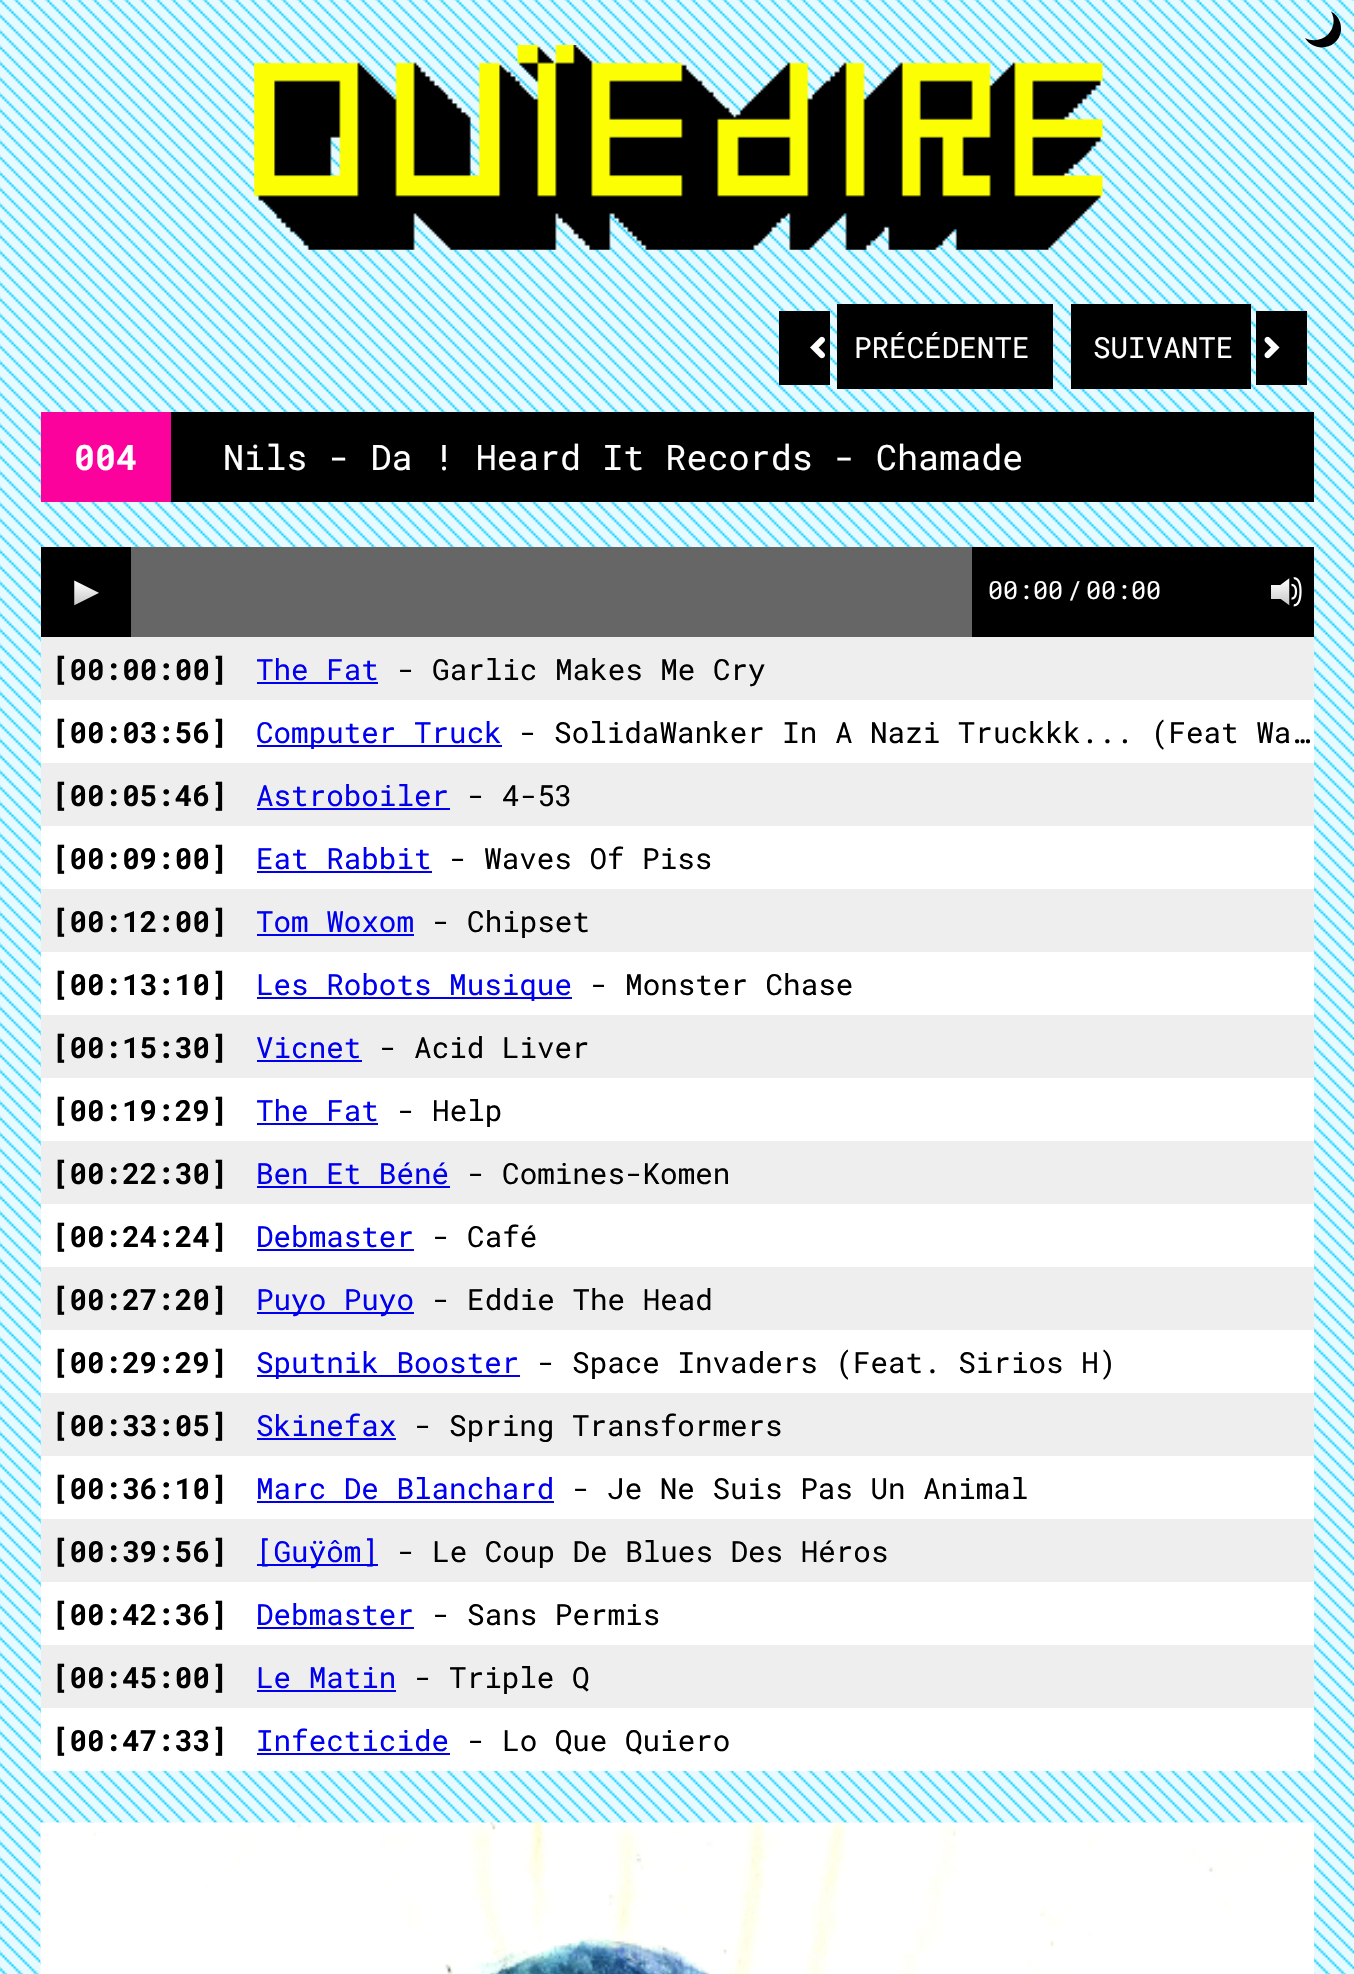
#include "include/core/SkBlurTypes.h"
#include "include/core/SkCanvas.h"
#include "include/core/SkData.h"
#include "include/core/SkFont.h"
#include "include/core/SkFontMgr.h"
#include "include/core/SkImage.h"
#include "include/core/SkMaskFilter.h"
#include "include/core/SkPaint.h"
#include "include/core/SkPathBuilder.h"
#include "include/core/SkTextBlob.h"
#include "include/effects/SkDashPathEffect.h"
#include "include/effects/SkGradientShader.h"
#include "include/utils/SkParsePath.h"

extern sk_sp<SkFontMgr> fontMgr;

void draw(SkCanvas* canvas) {
    SkPaint p;
    p.setAntiAlias(true);
    auto font = [&](const char* family, int weight, float size, bool italic = false) {
        SkFontStyle style(weight, SkFontStyle::kNormal_Width,
            italic ? SkFontStyle::kItalic_Slant : SkFontStyle::kUpright_Slant);
        SkFont result(fontMgr->matchFamilyStyle(family, style), size);
        result.setSubpixel(true);
        return result;
    };
    auto drawPhoto = [&](const char* path, float l, float t, float r, float b) {
        auto image = SkImages::DeferredFromEncodedData(SkData::MakeFromFileName(path));
        canvas->drawImageRect(image, SkRect::MakeLTRB(l, t, r, b), SkSamplingOptions());
    };
    canvas->clear(0xFFFFFFFF);
    drawPhoto("media/1.png", 0, 0, 1354, 1974);
    drawPhoto("media/2.png", 254, 45, 1103, 250);
    p.setColor(0xFF000000);
    canvas->drawPath(SkPathBuilder().moveTo(1328, 34.5f).cubicTo(1334, 28.5f, 1335.5f, 19, 1331, 11.5f).cubicTo(1335, 13.5f, 1338, 17, 1339.5f, 21).cubicTo(1341, 24, 1341, 27, 1341, 30.5f).cubicTo(1339, 49, 1314.5f, 53.5f, 1305, 38).cubicTo(1312.5f, 42, 1322, 40.5f, 1328, 34.5f).close().detach(), p);
    canvas->drawRect(SkRect::MakeLTRB(779, 311, 830, 385), p);
    canvas->drawRect(SkRect::MakeLTRB(837, 304, 1053, 389), p);
    drawPhoto("media/3.png", 810, 336, 825, 359);
    auto font1 = font("Roboto Mono", 400, 29.25f);
    p.setColor(0xFFFFFFFF);
    canvas->drawString("PRÉCÉDENTE", 854, 358, font1, p);
    p.setColor(0xFF000000);
    canvas->drawRect(SkRect::MakeLTRB(1071, 304, 1251, 389), p);
    canvas->drawRect(SkRect::MakeLTRB(1256, 311, 1307, 385), p);
    p.setColor(0xFFFFFFFF);
    canvas->drawString("SUIVANTE", 1093, 358, font1, p);
    drawPhoto("media/4.png", 1264, 336, 1280, 359);
    p.setColor(0xFF000000);
    canvas->drawRect(SkRect::MakeLTRB(171, 412, 1314, 502), p);
    p.setColor(0xFFFC029C);
    canvas->drawRect(SkRect::MakeLTRB(41, 412, 171, 502), p);
    auto font2 = font("Roboto Mono", 700, 35.1f);
    p.setColor(0xFFFFFFFF);
    canvas->drawString("004", 74, 470, font2, p);
    auto font3 = font("Roboto Mono", 400, 35.1f);
    canvas->drawString("Nils - Da ! Heard It Records - Chamade", 223, 470, font3, p);
    p.setColor(0xFF000000);
    canvas->drawRect(SkRect::MakeLTRB(41, 547, 1314, 637), p);
    drawPhoto("media/5.png", 74, 580, 99, 606);
    p.setColor(0xFF666666);
    canvas->drawRect(SkRect::MakeLTRB(131, 547, 972, 637), p);
    auto font4 = font("Roboto Mono", 400, 25);
    p.setColor(0xFFFFFFFF);
    {
        const struct { const char* s; float x, y; } items[] = {
            {"00:00", 988, 599},
            {"/", 1067, 599},
            {"00:00", 1086, 599},
        };
        for (auto [s, x, y] : items) {
            canvas->drawString(s, x, y, font4, p);
        }
    }
    drawPhoto("media/6.png", 1271, 577, 1302, 607);
    p.setColor(0xFFEEEEEE);
    canvas->drawRect(SkRect::MakeLTRB(41, 637, 1314, 700), p);
    auto font5 = font("Roboto Mono", 700, 29.25f);
    p.setColor(0xFF000000);
    canvas->drawString("[00:00:00]", 52, 680, font5, p);
    p.setColor(0xFF0000EE);
    canvas->drawString("The Fat", 256, 680, font1, p);
    canvas->drawRect(SkRect::MakeLTRB(257, 682, 378, 684), p);
    p.setColor(0xFF000000);
    canvas->drawString("- Garlic Makes Me Cry", 397, 680, font1, p);
    p.setColor(0xFFFFFFFF);
    canvas->drawRect(SkRect::MakeLTRB(41, 700, 1314, 763), p);
    p.setColor(0xFF000000);
    canvas->drawString("[00:03:56]", 52, 743, font5, p);
    p.setColor(0xFF0000EE);
    canvas->drawRect(SkRect::MakeLTRB(257, 745, 502, 747), p);
    canvas->drawString("Computer Truck", 256, 743, font1, p);
    p.setColor(0xFF000000);
    canvas->drawString("- SolidaWanker In A Nazi Truckkk... (Feat Wa…", 519, 743, font1, p);
    p.setColor(0xFFEEEEEE);
    canvas->drawRect(SkRect::MakeLTRB(41, 763, 1314, 826), p);
    p.setColor(0xFF000000);
    canvas->drawString("[00:05:46]", 52, 806, font5, p);
    p.setColor(0xFF0000EE);
    canvas->drawString("Astroboiler", 256, 806, font1, p);
    canvas->drawRect(SkRect::MakeLTRB(257, 808, 450, 810), p);
    p.setColor(0xFF000000);
    canvas->drawString("- 4-53", 467, 806, font1, p);
    p.setColor(0xFFFFFFFF);
    canvas->drawRect(SkRect::MakeLTRB(41, 826, 1314, 889), p);
    p.setColor(0xFF000000);
    canvas->drawString("[00:09:00]", 52, 869, font5, p);
    p.setColor(0xFF0000EE);
    canvas->drawString("Eat Rabbit", 256, 869, font1, p);
    canvas->drawRect(SkRect::MakeLTRB(257, 871, 432, 873), p);
    p.setColor(0xFF000000);
    canvas->drawString("- Waves Of Piss", 449, 869, font1, p);
    p.setColor(0xFFEEEEEE);
    canvas->drawRect(SkRect::MakeLTRB(41, 889, 1314, 952), p);
    p.setColor(0xFF000000);
    canvas->drawString("[00:12:00]", 52, 932, font5, p);
    p.setColor(0xFF0000EE);
    canvas->drawString("Tom Woxom", 256, 932, font1, p);
    canvas->drawRect(SkRect::MakeLTRB(257, 934, 414, 936), p);
    p.setColor(0xFF000000);
    canvas->drawString("- Chipset", 432, 932, font1, p);
    p.setColor(0xFFFFFFFF);
    canvas->drawRect(SkRect::MakeLTRB(41, 952, 1314, 1015), p);
    p.setColor(0xFF000000);
    canvas->drawString("[00:13:10]", 52, 995, font5, p);
    p.setColor(0xFF0000EE);
    canvas->drawRect(SkRect::MakeLTRB(257, 997, 572, 999), p);
    canvas->drawString("Les Robots Musique", 256, 995, font1, p);
    p.setColor(0xFF000000);
    canvas->drawString("- Monster Chase", 590, 995, font1, p);
    p.setColor(0xFFEEEEEE);
    canvas->drawRect(SkRect::MakeLTRB(41, 1015, 1314, 1078), p);
    p.setColor(0xFF000000);
    canvas->drawString("[00:15:30]", 52, 1058, font5, p);
    p.setColor(0xFF0000EE);
    canvas->drawString("Vicnet", 256, 1058, font1, p);
    canvas->drawRect(SkRect::MakeLTRB(257, 1060, 362, 1062), p);
    p.setColor(0xFF000000);
    canvas->drawString("- Acid Liver", 379, 1058, font1, p);
    p.setColor(0xFFFFFFFF);
    canvas->drawRect(SkRect::MakeLTRB(41, 1078, 1314, 1141), p);
    p.setColor(0xFF000000);
    canvas->drawString("[00:19:29]", 52, 1121, font5, p);
    p.setColor(0xFF0000EE);
    canvas->drawString("The Fat", 256, 1121, font1, p);
    canvas->drawRect(SkRect::MakeLTRB(257, 1123, 378, 1125), p);
    p.setColor(0xFF000000);
    canvas->drawString("- Help", 397, 1121, font1, p);
    p.setColor(0xFFEEEEEE);
    canvas->drawRect(SkRect::MakeLTRB(41, 1141, 1314, 1204), p);
    p.setColor(0xFF000000);
    canvas->drawString("[00:22:30]", 52, 1184, font5, p);
    p.setColor(0xFF0000EE);
    canvas->drawString("Ben Et Béné", 256, 1184, font1, p);
    canvas->drawRect(SkRect::MakeLTRB(257, 1186, 450, 1188), p);
    p.setColor(0xFF000000);
    canvas->drawString("- Comines-Komen", 467, 1184, font1, p);
    p.setColor(0xFFFFFFFF);
    canvas->drawRect(SkRect::MakeLTRB(41, 1204, 1314, 1267), p);
    p.setColor(0xFF000000);
    canvas->drawString("[00:24:24]", 52, 1247, font5, p);
    p.setColor(0xFF0000EE);
    canvas->drawString("Debmaster", 256, 1247, font1, p);
    canvas->drawRect(SkRect::MakeLTRB(257, 1249, 414, 1251), p);
    p.setColor(0xFF000000);
    canvas->drawString("- Café", 432, 1247, font1, p);
    p.setColor(0xFFEEEEEE);
    canvas->drawRect(SkRect::MakeLTRB(41, 1267, 1314, 1330), p);
    p.setColor(0xFF000000);
    canvas->drawString("[00:27:20]", 52, 1310, font5, p);
    p.setColor(0xFF0000EE);
    canvas->drawRect(SkRect::MakeLTRB(257, 1312, 414, 1314), p);
    canvas->drawString("Puyo Puyo", 256, 1310, font1, p);
    p.setColor(0xFF000000);
    canvas->drawString("- Eddie The Head", 432, 1310, font1, p);
    p.setColor(0xFFFFFFFF);
    canvas->drawRect(SkRect::MakeLTRB(41, 1330, 1314, 1393), p);
    p.setColor(0xFF000000);
    canvas->drawString("[00:29:29]", 52, 1373, font5, p);
    p.setColor(0xFF0000EE);
    canvas->drawRect(SkRect::MakeLTRB(257, 1375, 520, 1377), p);
    canvas->drawString("Sputnik Booster", 256, 1373, font1, p);
    p.setColor(0xFF000000);
    canvas->drawString("- Space Invaders (Feat. Sirios H)", 537, 1373, font1, p);
    p.setColor(0xFFEEEEEE);
    canvas->drawRect(SkRect::MakeLTRB(41, 1393, 1314, 1456), p);
    p.setColor(0xFF000000);
    canvas->drawString("[00:33:05]", 52, 1436, font5, p);
    p.setColor(0xFF0000EE);
    canvas->drawString("Skinefax", 256, 1436, font1, p);
    canvas->drawRect(SkRect::MakeLTRB(257, 1438, 396, 1440), p);
    p.setColor(0xFF000000);
    canvas->drawString("- Spring Transformers", 414, 1436, font1, p);
    p.setColor(0xFFFFFFFF);
    canvas->drawRect(SkRect::MakeLTRB(41, 1456, 1314, 1519), p);
    p.setColor(0xFF000000);
    canvas->drawString("[00:36:10]", 52, 1499, font5, p);
    p.setColor(0xFF0000EE);
    canvas->drawString("Marc De Blanchard", 256, 1499, font1, p);
    canvas->drawRect(SkRect::MakeLTRB(257, 1501, 554, 1503), p);
    p.setColor(0xFF000000);
    canvas->drawString("- Je Ne Suis Pas Un Animal", 572, 1499, font1, p);
    p.setColor(0xFFEEEEEE);
    canvas->drawRect(SkRect::MakeLTRB(41, 1519, 1314, 1582), p);
    p.setColor(0xFF000000);
    canvas->drawString("[00:39:56]", 52, 1562, font5, p);
    p.setColor(0xFF0000EE);
    canvas->drawRect(SkRect::MakeLTRB(257, 1564, 378, 1566), p);
    canvas->drawString("[Guÿôm]", 256, 1562, font1, p);
    p.setColor(0xFF000000);
    canvas->drawString("- Le Coup De Blues Des Héros", 397, 1562, font1, p);
    p.setColor(0xFFFFFFFF);
    canvas->drawRect(SkRect::MakeLTRB(41, 1582, 1314, 1645), p);
    p.setColor(0xFF000000);
    canvas->drawString("[00:42:36]", 52, 1625, font5, p);
    p.setColor(0xFF0000EE);
    canvas->drawString("Debmaster", 256, 1625, font1, p);
    canvas->drawRect(SkRect::MakeLTRB(257, 1627, 414, 1629), p);
    p.setColor(0xFF000000);
    canvas->drawString("- Sans Permis", 432, 1625, font1, p);
    p.setColor(0xFFEEEEEE);
    canvas->drawRect(SkRect::MakeLTRB(41, 1645, 1314, 1708), p);
    p.setColor(0xFF000000);
    canvas->drawString("[00:45:00]", 52, 1688, font5, p);
    p.setColor(0xFF0000EE);
    canvas->drawString("Le Matin", 256, 1688, font1, p);
    canvas->drawRect(SkRect::MakeLTRB(257, 1690, 396, 1692), p);
    p.setColor(0xFF000000);
    canvas->drawString("- Triple Q", 414, 1688, font1, p);
    p.setColor(0xFFFFFFFF);
    canvas->drawRect(SkRect::MakeLTRB(41, 1708, 1314, 1771), p);
    p.setColor(0xFF000000);
    canvas->drawString("[00:47:33]", 52, 1751, font5, p);
    p.setColor(0xFF0000EE);
    canvas->drawString("Infecticide", 256, 1751, font1, p);
    canvas->drawRect(SkRect::MakeLTRB(257, 1753, 450, 1755), p);
    p.setColor(0xFF000000);
    canvas->drawString("- Lo Que Quiero", 467, 1751, font1, p);
    drawPhoto("media/7.png", 40, 1822, 1314, 1974);
}
